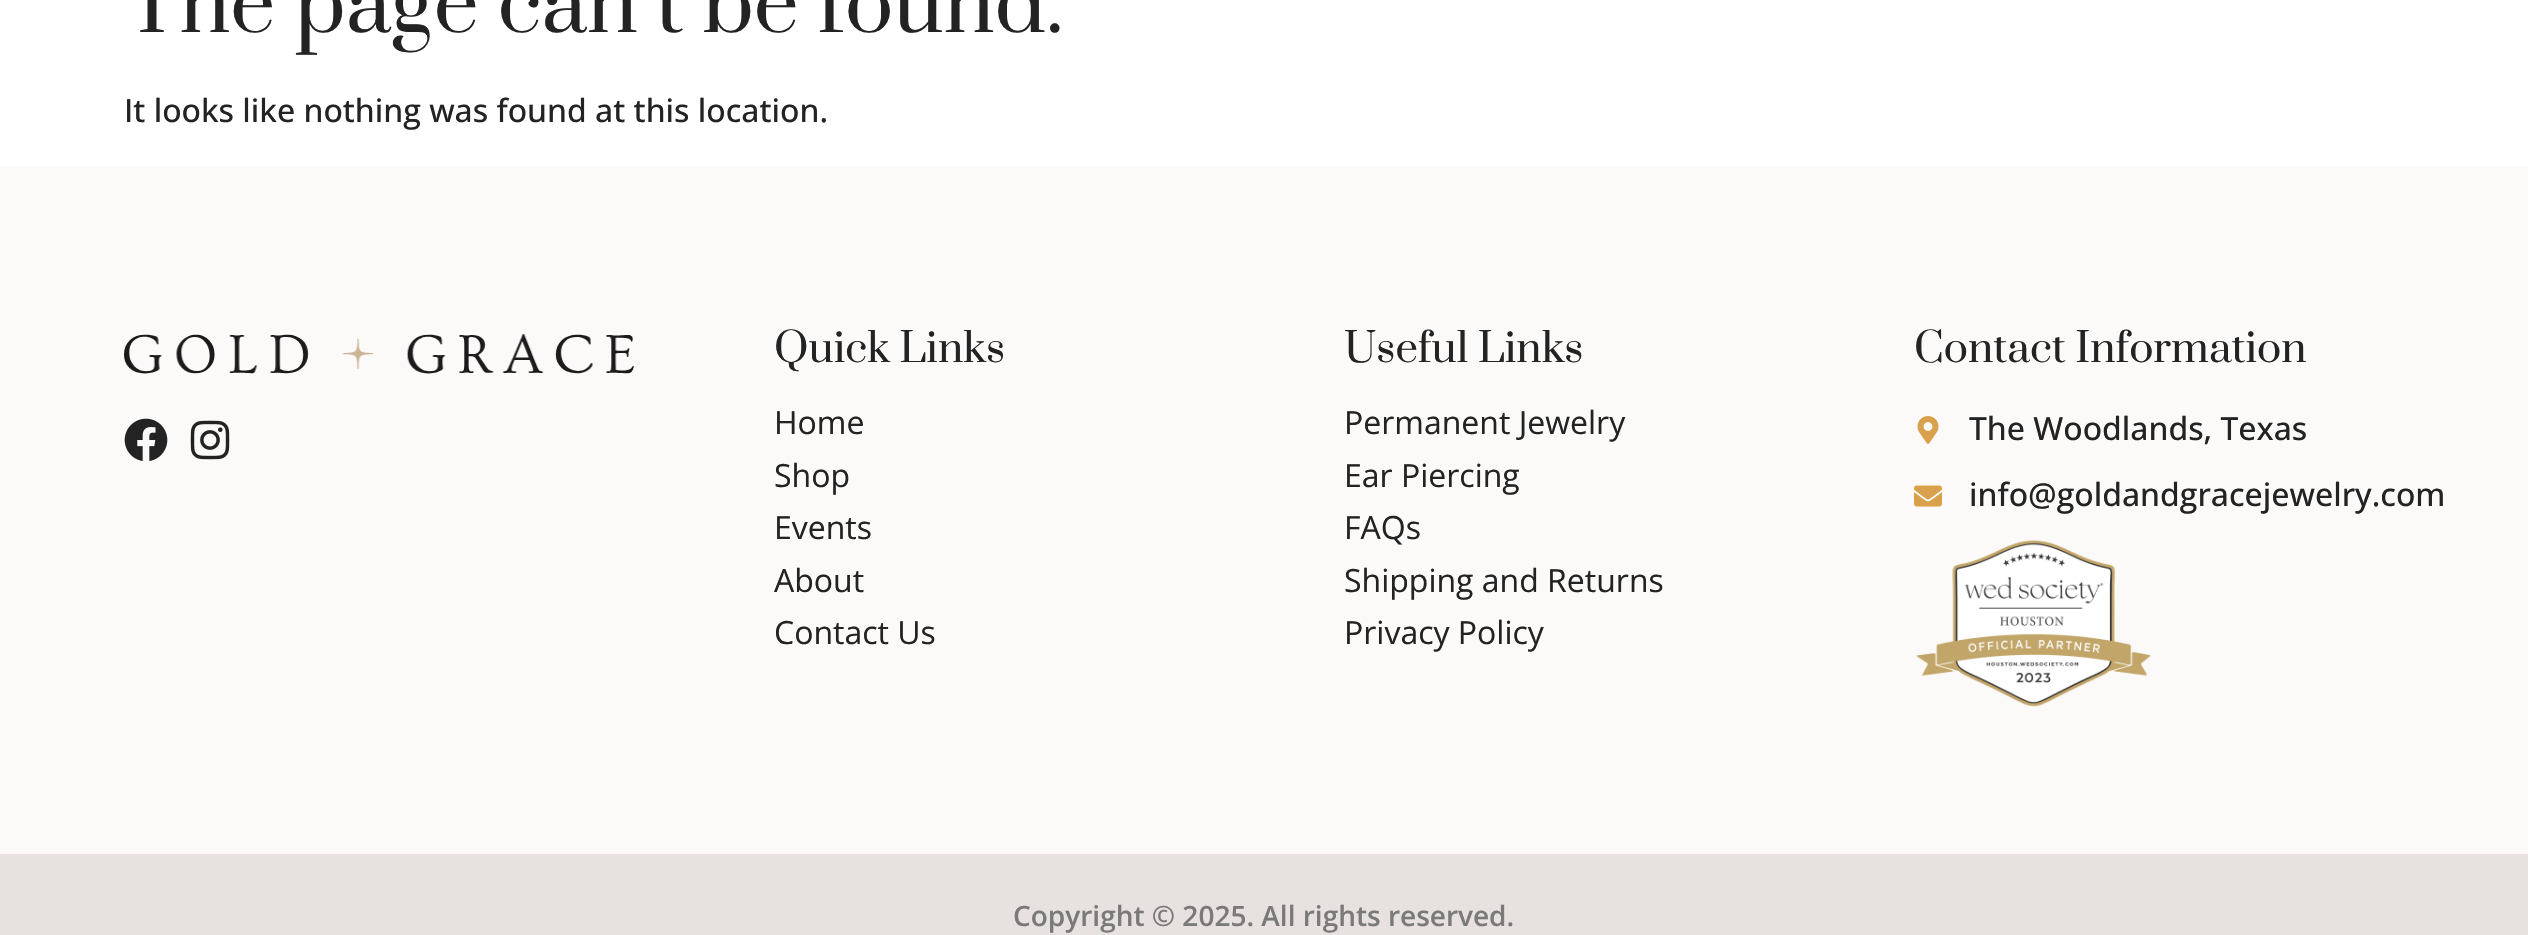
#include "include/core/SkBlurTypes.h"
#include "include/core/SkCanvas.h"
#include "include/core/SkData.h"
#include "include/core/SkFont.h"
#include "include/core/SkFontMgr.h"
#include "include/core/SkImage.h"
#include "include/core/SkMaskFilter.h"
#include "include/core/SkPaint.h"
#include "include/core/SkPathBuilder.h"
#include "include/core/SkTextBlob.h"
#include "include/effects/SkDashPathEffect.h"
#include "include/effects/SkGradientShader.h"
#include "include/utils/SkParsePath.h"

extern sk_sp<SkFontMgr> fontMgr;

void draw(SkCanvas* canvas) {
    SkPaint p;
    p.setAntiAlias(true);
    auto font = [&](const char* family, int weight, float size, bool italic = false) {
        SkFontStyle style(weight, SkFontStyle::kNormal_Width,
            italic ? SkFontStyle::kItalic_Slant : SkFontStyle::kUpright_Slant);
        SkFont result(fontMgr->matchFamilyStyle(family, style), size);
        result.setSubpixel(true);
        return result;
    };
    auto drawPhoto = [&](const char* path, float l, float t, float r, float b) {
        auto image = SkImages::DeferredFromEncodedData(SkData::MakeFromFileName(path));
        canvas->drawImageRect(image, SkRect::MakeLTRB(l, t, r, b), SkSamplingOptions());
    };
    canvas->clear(0xFFFFFFFF);
    auto font1 = font("Prata", 400, 80);
    p.setColor(0xFF232323);
    canvas->drawString("The page can’t be found.", 124, 32, font1, p);
    auto font2 = font("Open Sans", 500, 32);
    canvas->drawString("It looks like nothing was found at this location.", 124, 122, font2, p);
    p.setColor(0xFFFBFAF9);
    canvas->drawRect(SkRect::MakeLTRB(0, 166, 2528, 854), p);
    drawPhoto("media/1.png", 124, 334, 634, 374);
    drawPhoto("media/2.png", 124, 418, 168, 461);
    drawPhoto("media/3.png", 190, 420, 230, 460);
    auto font3 = font("Prata", 400, 40);
    p.setColor(0xFF232323);
    canvas->drawString("Quick Links", 774, 362, font3, p);
    auto font4 = font("Open Sans", 400, 32);
    {
        const struct { const char* s; float x, y; } items[] = {
            {"Home", 774, 434},
            {"Shop", 774, 487},
            {"Events", 774, 539},
            {"About", 774, 592},
            {"Contact Us", 774, 644},
        };
        for (auto [s, x, y] : items) {
            canvas->drawString(s, x, y, font4, p);
        }
    }
    canvas->drawString("Useful Links", 1344, 362, font3, p);
    {
        const struct { const char* s; float x, y; } items[] = {
            {"Permanent Jewelry", 1344, 434},
            {"Ear Piercing", 1344, 487},
            {"FAQs", 1344, 539},
            {"Shipping and Returns", 1344, 592},
            {"Privacy Policy", 1344, 644},
        };
        for (auto [s, x, y] : items) {
            canvas->drawString(s, x, y, font4, p);
        }
    }
    canvas->drawString("Contact Information", 1914, 362, font3, p);
    drawPhoto("media/4.png", 1917, 416, 1939, 444);
    canvas->drawString("The Woodlands, Texas", 1969, 440, font2, p);
    drawPhoto("media/5.png", 1914, 485, 1942, 507);
    canvas->drawString("info@goldandgracejewelry.com", 1969, 506, font2, p);
    drawPhoto("media/6.png", 1916, 540, 2151, 707);
    p.setColor(0xFFE7E1E0);
    canvas->drawRect(SkRect::MakeLTRB(0, 854, 2528, 935), p);
    auto font5 = font("Open Sans", 600, 28);
    p.setColor(0xFF7A7A7A);
    canvas->drawString("Copyright © 2025. All rights reserved.", 1013, 926, font5, p);
}
